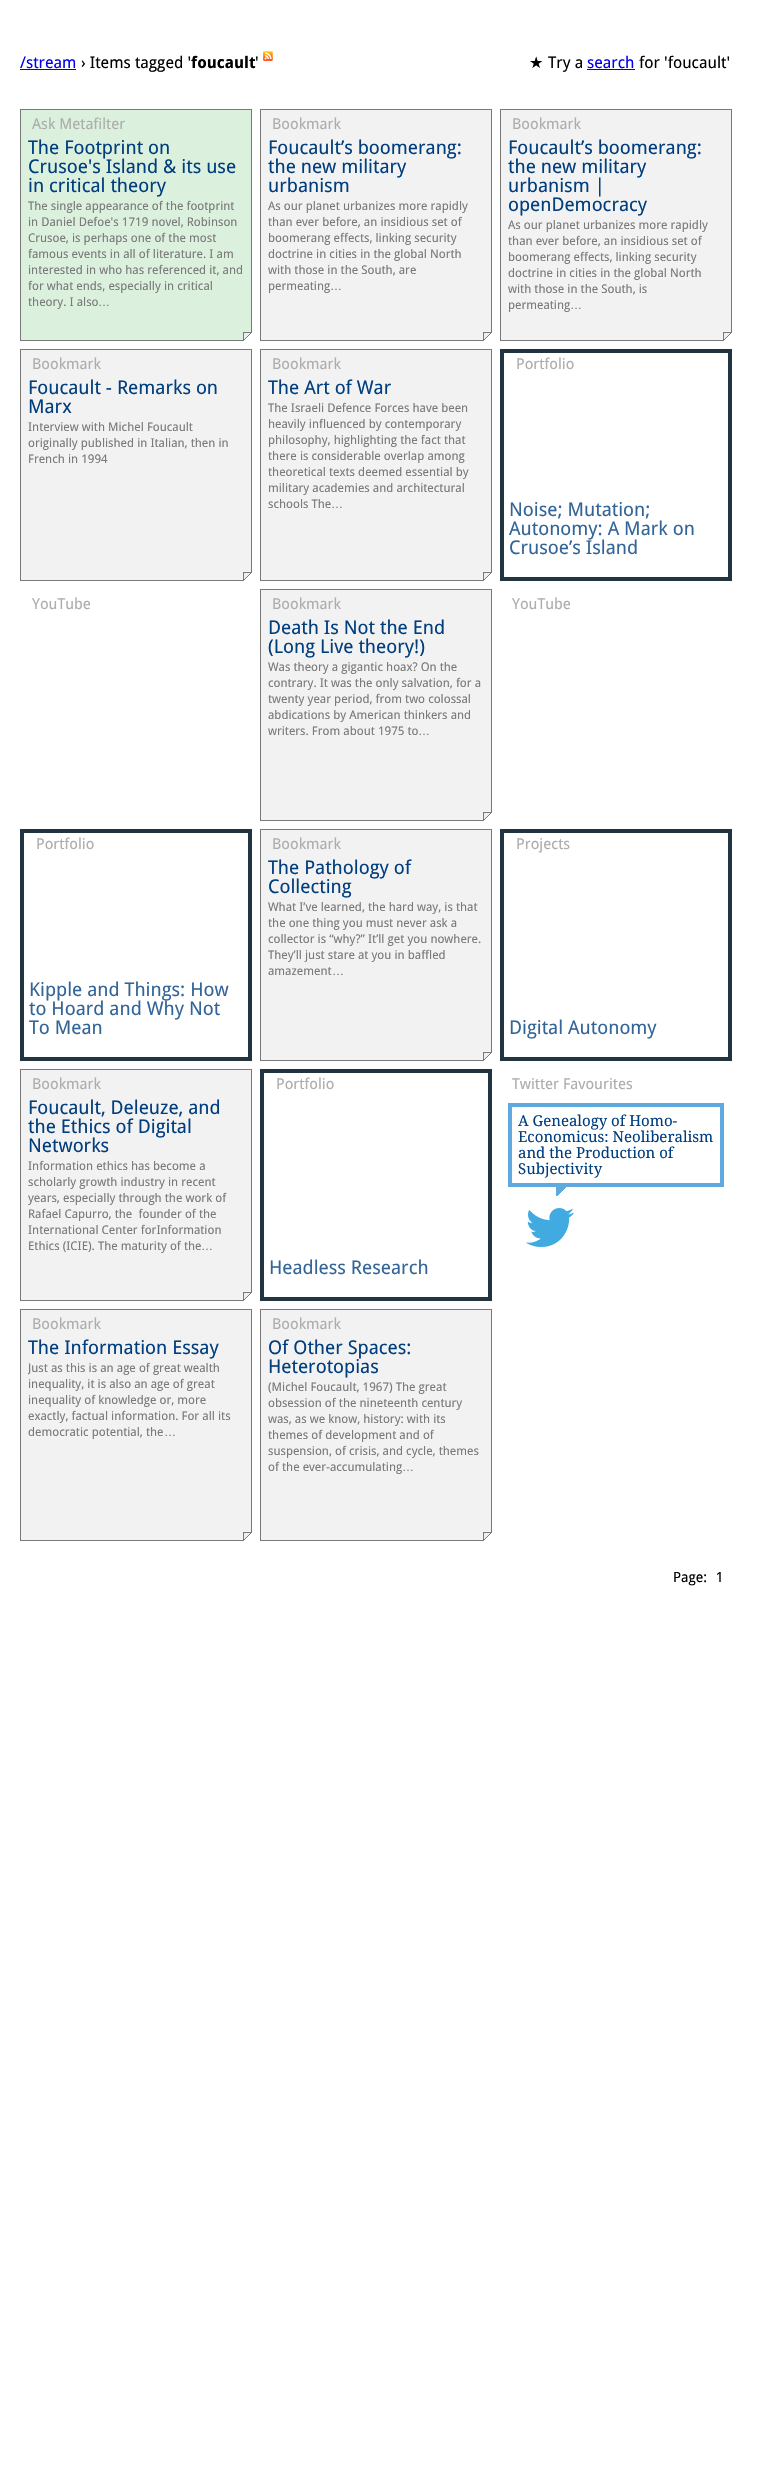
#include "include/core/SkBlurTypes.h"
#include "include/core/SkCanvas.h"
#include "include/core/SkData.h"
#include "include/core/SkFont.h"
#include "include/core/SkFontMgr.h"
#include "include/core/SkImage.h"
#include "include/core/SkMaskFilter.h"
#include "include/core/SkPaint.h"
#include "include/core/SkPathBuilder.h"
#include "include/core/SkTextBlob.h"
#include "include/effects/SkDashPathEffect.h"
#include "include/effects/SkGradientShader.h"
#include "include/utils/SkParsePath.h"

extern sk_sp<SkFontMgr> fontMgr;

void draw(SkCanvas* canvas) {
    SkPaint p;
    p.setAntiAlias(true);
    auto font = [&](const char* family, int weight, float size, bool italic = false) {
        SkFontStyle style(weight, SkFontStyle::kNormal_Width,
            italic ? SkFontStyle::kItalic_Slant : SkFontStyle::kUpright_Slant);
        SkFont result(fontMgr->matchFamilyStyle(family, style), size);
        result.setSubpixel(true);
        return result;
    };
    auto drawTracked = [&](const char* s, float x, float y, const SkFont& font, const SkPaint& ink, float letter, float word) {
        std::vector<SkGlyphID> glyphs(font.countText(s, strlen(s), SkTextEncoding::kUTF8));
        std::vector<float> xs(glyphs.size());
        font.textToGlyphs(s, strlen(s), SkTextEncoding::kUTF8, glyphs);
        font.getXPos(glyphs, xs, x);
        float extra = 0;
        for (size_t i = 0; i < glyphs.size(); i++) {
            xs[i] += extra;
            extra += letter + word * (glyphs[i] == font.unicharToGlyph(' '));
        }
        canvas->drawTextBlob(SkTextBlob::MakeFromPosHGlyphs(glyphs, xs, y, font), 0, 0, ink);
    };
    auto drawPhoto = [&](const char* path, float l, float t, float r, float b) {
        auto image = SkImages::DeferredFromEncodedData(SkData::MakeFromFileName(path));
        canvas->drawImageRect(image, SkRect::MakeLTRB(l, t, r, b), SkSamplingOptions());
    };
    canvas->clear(0xFFFFFFFF);
    auto font1 = font("Droid Sans", 400, 16);
    p.setColor(0xFF0000EE);
    canvas->drawString("/stream", 20, 68, font1, p);
    canvas->drawRect(SkRect::MakeLTRB(20, 69, 76, 70), p);
    p.setColor(0xFF000000);
    canvas->drawString("› Items tagged '", 81, 68, font1, p);
    auto font2 = font("Droid Sans", 700, 16);
    canvas->drawString("foucault", 191, 68, font2, p);
    canvas->drawString("'", 255, 68, font1, p);
    drawPhoto("media/1.png", 263, 51, 273, 61);
    auto font3 = font("DejaVu Sans", 400, 16);
    canvas->drawString("★", 529, 68, font3, p);
    canvas->drawString("Try a", 548, 68, font1, p);
    p.setColor(0xFF0000EE);
    canvas->drawString("search", 587, 68, font1, p);
    canvas->drawRect(SkRect::MakeLTRB(587, 69, 635, 70), p);
    p.setColor(0xFF000000);
    canvas->drawString("for 'foucault'", 639, 68, font1, p);
    p.setColor(0xFFDCF1DD);
    canvas->drawRect(SkRect::MakeLTRB(21, 110, 251, 340), p);
    drawPhoto("media/2.png", 20, 109, 252, 341);
    auto font4 = font("Droid Sans", 400, 15);
    p.setColor(0xFFADADAD);
    canvas->drawString("Ask Metafilter", 32, 129, font4, p);
    auto font5 = font("Droid Sans", 400, 19);
    p.setColor(0xFF003E7E);
    {
        const struct { const char* s; float x, y; } items[] = {
            {"The Footprint on", 28, 154},
            {"Crusoe's Island & its use", 28, 173},
            {"in critical theory", 28, 192},
        };
        for (auto [s, x, y] : items) {
            canvas->drawString(s, x, y, font5, p);
        }
    }
    auto font6 = font("Droid Sans", 400, 12);
    p.setColor(0xFF797979);
    {
        const struct { const char* s; float x, y; } items[] = {
            {"The single appearance of the footprint", 28, 210},
            {"in Daniel Defoe's 1719 novel, Robinson", 28, 226},
            {"Crusoe, is perhaps one of the most", 28, 242},
            {"famous events in all of literature. I am", 28, 258},
            {"interested in who has referenced it, and", 28, 274},
            {"for what ends, especially in critical", 28, 290},
            {"theory. I also", 28, 306},
        };
        for (auto [s, x, y] : items) {
            canvas->drawString(s, x, y, font6, p);
        }
    }
    auto font7 = font("Liberation Sans", 400, 12);
    canvas->drawString("…", 98, 306, font7, p);
    p.setColor(0xFFF2F2F3);
    canvas->drawRect(SkRect::MakeLTRB(261, 110, 491, 340), p);
    drawPhoto("media/3.png", 260, 109, 492, 341);
    p.setColor(0xFFADADAD);
    canvas->drawString("Bookmark", 272, 129, font4, p);
    p.setColor(0xFF003E7E);
    {
        const struct { const char* s; float x, y; } items[] = {
            {"Foucault’s boomerang:", 268, 154},
            {"the new military", 268, 173},
            {"urbanism", 268, 192},
        };
        for (auto [s, x, y] : items) {
            canvas->drawString(s, x, y, font5, p);
        }
    }
    p.setColor(0xFF797979);
    {
        const struct { const char* s; float x, y; } items[] = {
            {"As our planet urbanizes more rapidly", 268, 210},
            {"than ever before, an insidious set of", 268, 226},
            {"boomerang effects, linking security", 268, 242},
            {"doctrine in cities in the global North", 268, 258},
            {"with those in the South, are", 268, 274},
            {"permeating", 268, 290},
        };
        for (auto [s, x, y] : items) {
            canvas->drawString(s, x, y, font6, p);
        }
    }
    canvas->drawString("…", 330, 290, font7, p);
    p.setColor(0xFFF2F2F3);
    canvas->drawRect(SkRect::MakeLTRB(501, 110, 731, 340), p);
    drawPhoto("media/3.png", 500, 109, 732, 341);
    p.setColor(0xFFADADAD);
    canvas->drawString("Bookmark", 512, 129, font4, p);
    p.setColor(0xFF003E7E);
    {
        const struct { const char* s; float x, y; } items[] = {
            {"Foucault’s boomerang:", 508, 154},
            {"the new military", 508, 173},
            {"urbanism |", 508, 192},
            {"openDemocracy", 508, 211},
        };
        for (auto [s, x, y] : items) {
            canvas->drawString(s, x, y, font5, p);
        }
    }
    p.setColor(0xFF797979);
    {
        const struct { const char* s; float x, y; } items[] = {
            {"As our planet urbanizes more rapidly", 508, 229},
            {"than ever before, an insidious set of", 508, 245},
            {"boomerang effects, linking security", 508, 261},
            {"doctrine in cities in the global North", 508, 277},
            {"with those in the South, is", 508, 293},
            {"permeating", 508, 309},
        };
        for (auto [s, x, y] : items) {
            canvas->drawString(s, x, y, font6, p);
        }
    }
    canvas->drawString("…", 570, 309, font7, p);
    p.setColor(0xFFF2F2F3);
    canvas->drawRect(SkRect::MakeLTRB(21, 350, 251, 580), p);
    drawPhoto("media/3.png", 20, 349, 252, 581);
    p.setColor(0xFFADADAD);
    canvas->drawString("Bookmark", 32, 369, font4, p);
    p.setColor(0xFF003E7E);
    canvas->drawString("Foucault - Remarks on", 28, 394, font5, p);
    canvas->drawString("Marx", 28, 413, font5, p);
    p.setColor(0xFF797979);
    {
        const struct { const char* s; float x, y; } items[] = {
            {"Interview with Michel Foucault", 28, 431},
            {"originally published in Italian, then in", 28, 447},
            {"French in 1994", 28, 463},
        };
        for (auto [s, x, y] : items) {
            canvas->drawString(s, x, y, font6, p);
        }
    }
    p.setColor(0xFFF2F2F3);
    canvas->drawRect(SkRect::MakeLTRB(261, 350, 491, 580), p);
    drawPhoto("media/3.png", 260, 349, 492, 581);
    p.setColor(0xFFADADAD);
    canvas->drawString("Bookmark", 272, 369, font4, p);
    p.setColor(0xFF003E7E);
    canvas->drawString("The Art of War", 268, 394, font5, p);
    p.setColor(0xFF797979);
    {
        const struct { const char* s; float x, y; } items[] = {
            {"The Israeli Defence Forces have been", 268, 412},
            {"heavily influenced by contemporary", 268, 428},
            {"philosophy, highlighting the fact that", 268, 444},
            {"there is considerable overlap among", 268, 460},
            {"theoretical texts deemed essential by", 268, 476},
            {"military academies and architectural", 268, 492},
            {"schools The", 268, 508},
        };
        for (auto [s, x, y] : items) {
            canvas->drawString(s, x, y, font6, p);
        }
    }
    canvas->drawString("…", 331, 508, font7, p);
    p.setStyle(SkPaint::kStroke_Style);
    p.setStrokeWidth(4);
    p.setColor(0xFF213442);
    canvas->drawRect(SkRect::MakeLTRB(502, 351, 730, 579), p);
    p.setStyle(SkPaint::kFill_Style);
    p.setColor(0xFFADADAD);
    canvas->drawString("Portfolio", 516, 369, font4, p);
    p.setColor(0xFF336598);
    {
        const struct { const char* s; float x, y; } items[] = {
            {"Noise; Mutation;", 509, 516},
            {"Autonomy: A Mark on", 509, 535},
            {"Crusoe’s Island", 509, 554},
        };
        for (auto [s, x, y] : items) {
            canvas->drawString(s, x, y, font5, p);
        }
    }
    p.setColor(0xFFADADAD);
    canvas->drawString("YouTube", 32, 609, font4, p);
    p.setColor(0xFFF2F2F3);
    canvas->drawRect(SkRect::MakeLTRB(261, 590, 491, 820), p);
    drawPhoto("media/3.png", 260, 589, 492, 821);
    p.setColor(0xFFADADAD);
    canvas->drawString("Bookmark", 272, 609, font4, p);
    p.setColor(0xFF003E7E);
    canvas->drawString("Death Is Not the End", 268, 634, font5, p);
    canvas->drawString("(Long Live theory!)", 268, 653, font5, p);
    p.setColor(0xFF797979);
    {
        const struct { const char* s; float x, y; } items[] = {
            {"Was theory a gigantic hoax? On the", 268, 671},
            {"contrary. It was the only salvation, for a", 268, 687},
            {"twenty year period, from two colossal", 268, 703},
            {"abdications by American thinkers and", 268, 719},
            {"writers. From about 1975 to", 268, 735},
        };
        for (auto [s, x, y] : items) {
            canvas->drawString(s, x, y, font6, p);
        }
    }
    canvas->drawString("…", 418, 735, font7, p);
    p.setColor(0xFFADADAD);
    canvas->drawString("YouTube", 512, 609, font4, p);
    p.setStyle(SkPaint::kStroke_Style);
    p.setColor(0xFF213442);
    canvas->drawRect(SkRect::MakeLTRB(22, 831, 250, 1059), p);
    p.setStyle(SkPaint::kFill_Style);
    p.setColor(0xFFADADAD);
    canvas->drawString("Portfolio", 36, 849, font4, p);
    p.setColor(0xFF336598);
    {
        const struct { const char* s; float x, y; } items[] = {
            {"Kipple and Things: How", 29, 996},
            {"to Hoard and Why Not", 29, 1015},
            {"To Mean", 29, 1034},
        };
        for (auto [s, x, y] : items) {
            canvas->drawString(s, x, y, font5, p);
        }
    }
    p.setColor(0xFFF2F2F3);
    canvas->drawRect(SkRect::MakeLTRB(261, 830, 491, 1060), p);
    drawPhoto("media/3.png", 260, 829, 492, 1061);
    p.setColor(0xFFADADAD);
    canvas->drawString("Bookmark", 272, 849, font4, p);
    p.setColor(0xFF003E7E);
    canvas->drawString("The Pathology of", 268, 874, font5, p);
    canvas->drawString("Collecting", 268, 893, font5, p);
    p.setColor(0xFF797979);
    {
        const struct { const char* s; float x, y; } items[] = {
            {"What I’ve learned, the hard way, is that", 268, 911},
            {"the one thing you must never ask a", 268, 927},
            {"collector is “why?” It’ll get you nowhere.", 268, 943},
            {"They’ll just stare at you in baffled", 268, 959},
            {"amazement", 268, 975},
        };
        for (auto [s, x, y] : items) {
            canvas->drawString(s, x, y, font6, p);
        }
    }
    canvas->drawString("…", 332, 975, font7, p);
    p.setStyle(SkPaint::kStroke_Style);
    p.setColor(0xFF213442);
    canvas->drawRect(SkRect::MakeLTRB(502, 831, 730, 1059), p);
    p.setStyle(SkPaint::kFill_Style);
    p.setColor(0xFFADADAD);
    canvas->drawString("Projects", 516, 849, font4, p);
    p.setColor(0xFF336598);
    canvas->drawString("Digital Autonomy", 509, 1034, font5, p);
    p.setColor(0xFFF2F2F3);
    canvas->drawRect(SkRect::MakeLTRB(21, 1070, 251, 1300), p);
    drawPhoto("media/3.png", 20, 1069, 252, 1301);
    p.setColor(0xFFADADAD);
    canvas->drawString("Bookmark", 32, 1089, font4, p);
    p.setColor(0xFF003E7E);
    {
        const struct { const char* s; float x, y; } items[] = {
            {"Foucault, Deleuze, and", 28, 1114},
            {"the Ethics of Digital", 28, 1133},
            {"Networks", 28, 1152},
        };
        for (auto [s, x, y] : items) {
            canvas->drawString(s, x, y, font5, p);
        }
    }
    p.setColor(0xFF797979);
    {
        const struct { const char* s; float x, y; } items[] = {
            {"Information ethics has become a", 28, 1170},
            {"scholarly growth industry in recent", 28, 1186},
            {"years, especially through the work of", 28, 1202},
            {"Rafael Capurro, the  founder of the", 28, 1218},
            {"International Center forInformation", 28, 1234},
            {"Ethics (ICIE). The maturity of the", 28, 1250},
        };
        for (auto [s, x, y] : items) {
            canvas->drawString(s, x, y, font6, p);
        }
    }
    canvas->drawString("…", 201, 1250, font7, p);
    p.setStyle(SkPaint::kStroke_Style);
    p.setColor(0xFF213442);
    canvas->drawRect(SkRect::MakeLTRB(262, 1071, 490, 1299), p);
    p.setStyle(SkPaint::kFill_Style);
    p.setColor(0xFFADADAD);
    canvas->drawString("Portfolio", 276, 1089, font4, p);
    p.setColor(0xFF336598);
    canvas->drawString("Headless Research", 269, 1274, font5, p);
    p.setColor(0xFFADADAD);
    canvas->drawString("Twitter Favourites", 512, 1089, font4, p);
    p.setStyle(SkPaint::kStroke_Style);
    p.setColor(0xFF5EA9DD);
    canvas->drawRect(SkRect::MakeLTRB(510, 1105, 722, 1185), p);
    auto font8 = font("Droid Serif", 400, 15);
    p.setStyle(SkPaint::kFill_Style);
    p.setColor(0xFF003E7E);
    {
        const struct { const char* s; float x, y; } items[] = {
            {"A Genealogy of Homo-", 518, 1126},
            {"Economicus: Neoliberalism", 518, 1142},
            {"and the Production of", 518, 1158},
            {"Subjectivity", 518, 1174},
        };
        for (auto [s, x, y] : items) {
            canvas->drawString(s, x, y, font8, p);
        }
    }
    drawPhoto("media/4.png", 556, 1187, 566, 1196);
    drawPhoto("media/5.png", 526, 1208, 574, 1247);
    p.setColor(0xFFF2F2F3);
    canvas->drawRect(SkRect::MakeLTRB(21, 1310, 251, 1540), p);
    drawPhoto("media/3.png", 20, 1309, 252, 1541);
    p.setColor(0xFFADADAD);
    canvas->drawString("Bookmark", 32, 1329, font4, p);
    p.setColor(0xFF003E7E);
    canvas->drawString("The Information Essay", 28, 1354, font5, p);
    canvas->save();
    canvas->clipRect(SkRect::MakeLTRB(28, 1360, 244, 1440));
    p.setColor(0xFF797979);
    canvas->drawString("Just as this is an age of great wealth", 28, 1372, font6, p);
    canvas->restore();
    {
        const struct { const char* s; float x, y; } items[] = {
            {"inequality, it is also an age of great", 28, 1388},
            {"inequality of knowledge or, more", 28, 1404},
            {"exactly, factual information. For all its", 28, 1420},
            {"democratic potential, the", 28, 1436},
        };
        for (auto [s, x, y] : items) {
            canvas->drawString(s, x, y, font6, p);
        }
    }
    canvas->drawString("…", 164, 1436, font7, p);
    p.setColor(0xFFF2F2F3);
    canvas->drawRect(SkRect::MakeLTRB(261, 1310, 491, 1540), p);
    drawPhoto("media/3.png", 260, 1309, 492, 1541);
    p.setColor(0xFFADADAD);
    canvas->drawString("Bookmark", 272, 1329, font4, p);
    p.setColor(0xFF003E7E);
    canvas->drawString("Of Other Spaces:", 268, 1354, font5, p);
    canvas->drawString("Heterotopias", 268, 1373, font5, p);
    p.setColor(0xFF797979);
    {
        const struct { const char* s; float x, y; } items[] = {
            {"(Michel Foucault, 1967) The great", 268, 1391},
            {"obsession of the nineteenth century", 268, 1407},
            {"was, as we know, history: with its", 268, 1423},
            {"themes of development and of", 268, 1439},
            {"suspension, of crisis, and cycle, themes", 268, 1455},
            {"of the ever-accumulating", 268, 1471},
        };
        for (auto [s, x, y] : items) {
            canvas->drawString(s, x, y, font6, p);
        }
    }
    canvas->drawString("…", 402, 1471, font7, p);
    auto font9 = font("Droid Sans", 400, 14);
    p.setColor(0xFF000000);
    drawTracked("Page: 1", 673, 1582, font9, p, 0, 5);
}
